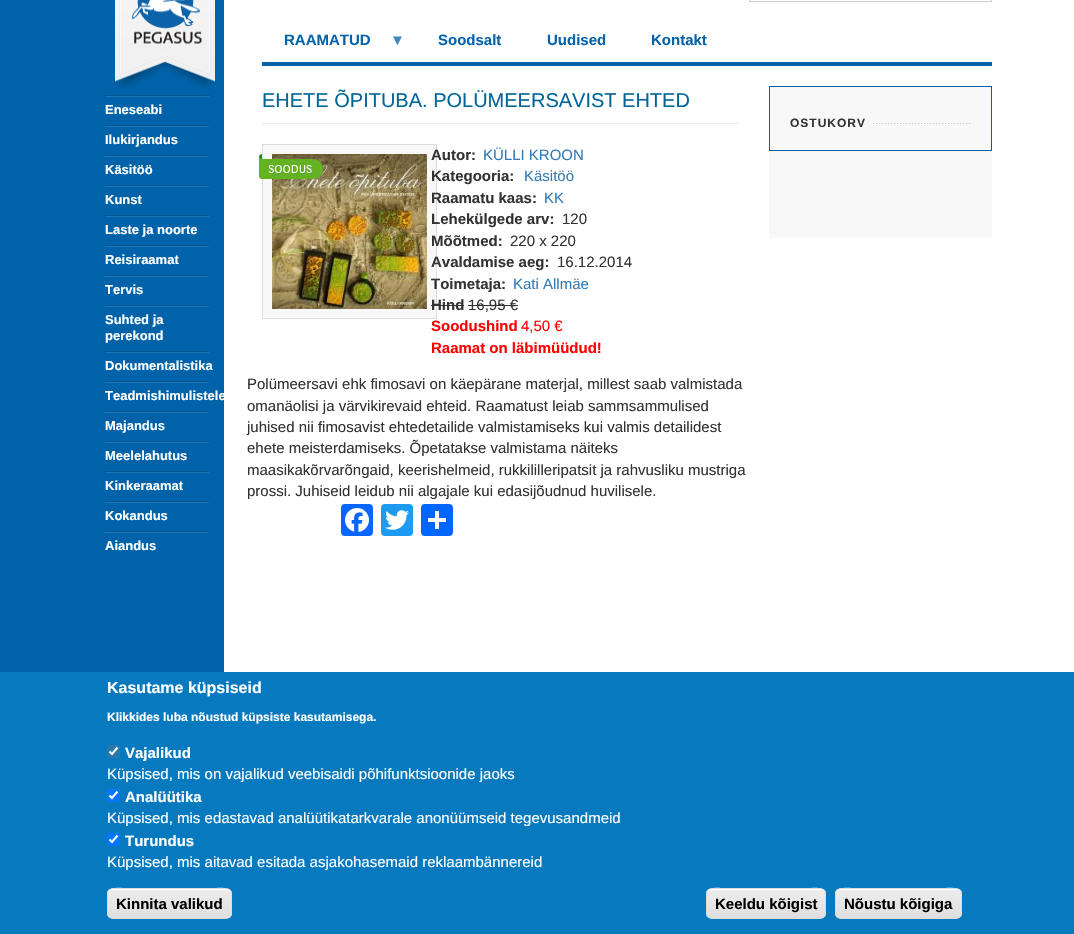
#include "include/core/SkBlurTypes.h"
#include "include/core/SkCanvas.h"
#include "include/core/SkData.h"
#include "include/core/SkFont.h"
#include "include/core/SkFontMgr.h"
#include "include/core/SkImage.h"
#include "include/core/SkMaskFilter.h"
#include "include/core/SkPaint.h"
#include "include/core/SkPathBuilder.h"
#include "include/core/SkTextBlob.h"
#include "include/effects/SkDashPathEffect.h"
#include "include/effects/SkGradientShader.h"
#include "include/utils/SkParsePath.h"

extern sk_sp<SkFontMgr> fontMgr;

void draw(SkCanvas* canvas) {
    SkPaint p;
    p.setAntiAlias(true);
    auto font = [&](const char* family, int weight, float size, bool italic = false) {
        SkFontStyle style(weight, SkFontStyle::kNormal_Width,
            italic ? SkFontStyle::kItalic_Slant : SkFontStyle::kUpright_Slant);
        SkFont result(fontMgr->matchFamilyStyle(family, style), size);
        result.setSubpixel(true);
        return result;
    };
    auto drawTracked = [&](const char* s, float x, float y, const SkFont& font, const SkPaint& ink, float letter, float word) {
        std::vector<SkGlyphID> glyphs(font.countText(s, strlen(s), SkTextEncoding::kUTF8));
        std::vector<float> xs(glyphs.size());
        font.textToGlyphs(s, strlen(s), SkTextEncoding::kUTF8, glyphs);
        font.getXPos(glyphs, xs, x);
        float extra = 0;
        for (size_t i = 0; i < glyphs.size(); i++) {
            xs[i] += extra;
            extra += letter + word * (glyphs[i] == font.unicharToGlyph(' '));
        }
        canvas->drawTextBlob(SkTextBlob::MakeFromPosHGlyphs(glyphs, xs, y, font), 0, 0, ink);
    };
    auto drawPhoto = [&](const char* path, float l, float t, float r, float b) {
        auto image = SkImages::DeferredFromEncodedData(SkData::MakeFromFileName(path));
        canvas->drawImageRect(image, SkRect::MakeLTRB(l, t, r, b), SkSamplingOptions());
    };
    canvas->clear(0xFFFFFFFF);
    p.setColor(0xFF0063AA);
    canvas->drawRect(SkRect::MakeLTRB(0, 0, 224, 672), p);
    drawPhoto("media/1.png", 114, 0, 216, 90);
    drawPhoto("media/2.png", 105, 95, 209, 97);
    auto font1 = font("Liberation Sans", 700, 13);
    p.setColor(0xFFFFFFFF);
    canvas->drawString("Eneseabi", 105, 114, font1, p);
    drawPhoto("media/2.png", 105, 125, 209, 127);
    canvas->drawString("Ilukirjandus", 105, 144, font1, p);
    drawPhoto("media/2.png", 105, 155, 209, 157);
    canvas->drawString("Käsitöö", 105, 174, font1, p);
    drawPhoto("media/2.png", 105, 185, 209, 187);
    canvas->drawString("Kunst", 105, 204, font1, p);
    drawPhoto("media/2.png", 105, 215, 209, 217);
    canvas->drawString("Laste ja noorte", 105, 234, font1, p);
    drawPhoto("media/2.png", 105, 245, 209, 247);
    canvas->drawString("Reisiraamat", 105, 264, font1, p);
    drawPhoto("media/2.png", 105, 275, 209, 277);
    canvas->drawString("Tervis", 105, 294, font1, p);
    drawPhoto("media/2.png", 105, 305, 209, 307);
    canvas->drawString("Suhted ja", 105, 324, font1, p);
    canvas->drawString("perekond", 105, 340, font1, p);
    drawPhoto("media/2.png", 105, 351, 209, 353);
    canvas->drawString("Dokumentalistika", 105, 370, font1, p);
    drawPhoto("media/2.png", 105, 381, 209, 383);
    canvas->drawString("Teadmishimulistele", 105, 400, font1, p);
    drawPhoto("media/2.png", 105, 411, 209, 413);
    canvas->drawString("Majandus", 105, 430, font1, p);
    drawPhoto("media/2.png", 105, 441, 209, 443);
    canvas->drawString("Meelelahutus", 105, 460, font1, p);
    drawPhoto("media/2.png", 105, 471, 209, 473);
    canvas->drawString("Kinkeraamat", 105, 490, font1, p);
    drawPhoto("media/2.png", 105, 501, 209, 503);
    canvas->drawString("Kokandus", 105, 520, font1, p);
    drawPhoto("media/2.png", 105, 531, 209, 533);
    canvas->drawString("Aiandus", 105, 550, font1, p);
    p.setStyle(SkPaint::kStroke_Style);
    p.setStrokeWidth(1);
    p.setColor(0xFFCCCCCC);
    canvas->drawRect(SkRect::MakeLTRB(749.5f, -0.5f, 991.5f, 1.5f), p);
    p.setStyle(SkPaint::kFill_Style);
    p.setColor(0xFF0263AA);
    canvas->drawRect(SkRect::MakeLTRB(262, 62, 992, 66), p);
    auto font2 = font("Liberation Sans", 700, 15);
    canvas->drawString("RAAMATUD", 284, 45, font2, p);
    p.setColor(0xFF418ABF);
    canvas->drawString("▼", 390, 45, font2, p);
    p.setColor(0xFF0263AA);
    {
        const struct { const char* s; float x, y; } items[] = {
            {"Soodsalt", 438, 45},
            {"Uudised", 547, 45},
            {"Kontakt", 651, 45},
        };
        for (auto [s, x, y] : items) {
            canvas->drawString(s, x, y, font2, p);
        }
    }
    p.setColor(0xFFEEEEEE);
    canvas->drawRect(SkRect::MakeLTRB(262, 123, 739, 124), p);
    auto font3 = font("Liberation Sans", 400, 20);
    p.setColor(0xFF006699);
    canvas->drawString("EHETE ÕPITUBA. POLÜMEERSAVIST EHTED", 262, 107, font3, p);
    p.setColor(0xFFF8F8F8);
    canvas->drawRect(SkRect::MakeLTRB(262.5f, 144.5f, 436.5f, 318.5f), p);
    p.setStyle(SkPaint::kStroke_Style);
    p.setColor(0xFFDDDDDD);
    canvas->drawRect(SkRect::MakeLTRB(262.5f, 144.5f, 436.5f, 318.5f), p);
    drawPhoto("media/4.png", 272, 154, 427, 309);
    drawPhoto("media/3.png", 259, 154, 323, 179);
    p.setStyle(SkPaint::kFill_Style);
    p.setColor(0xFF333333);
    canvas->drawString("Autor:", 431, 160, font2, p);
    auto font4 = font("Liberation Sans", 400, 15);
    p.setColor(0xFF337AB7);
    canvas->drawString("KÜLLI KROON", 483, 160, font4, p);
    p.setColor(0xFF333333);
    canvas->drawString("Kategooria:", 431, 181, font2, p);
    p.setColor(0xFF337AB7);
    canvas->drawString("Käsitöö", 524, 181, font4, p);
    p.setColor(0xFF333333);
    canvas->drawString("Raamatu kaas:", 431, 203, font2, p);
    p.setColor(0xFF337AB7);
    canvas->drawString("KK", 544, 203, font4, p);
    p.setColor(0xFF333333);
    canvas->drawString("Lehekülgede arv:", 431, 224, font2, p);
    canvas->drawString("120", 562, 224, font4, p);
    canvas->drawString("Mõõtmed:", 431, 246, font2, p);
    canvas->drawString("220 x 220", 510, 246, font4, p);
    canvas->drawString("Avaldamise aeg:", 431, 267, font2, p);
    canvas->drawString("16.12.2014", 557, 267, font4, p);
    canvas->drawString("Toimetaja:", 431, 289, font2, p);
    p.setColor(0xFF337AB7);
    canvas->drawString("Kati Allmäe", 513, 289, font4, p);
    p.setColor(0xFF333333);
    canvas->drawString("Hind", 431, 310, font2, p);
    canvas->drawRect(SkRect::MakeLTRB(431, 305, 464, 306), p);
    canvas->drawString("16,95 €", 468, 310, font4, p);
    canvas->drawRect(SkRect::MakeLTRB(468, 305, 518, 306), p);
    p.setColor(0xFFFF0000);
    canvas->drawString("Soodushind", 431, 331, font2, p);
    canvas->drawString("4,50 €", 521, 331, font4, p);
    canvas->drawString("Raamat on läbimüüdud!", 431, 353, font2, p);
    p.setColor(0xFF333333);
    {
        const struct { const char* s; float x, y; } items[] = {
            {"Polümeersavi ehk fimosavi on käepärane materjal, millest saab valmistada", 247, 389},
            {"omanäolisi ja värvikirevaid ehteid. Raamatust leiab sammsammulised", 247, 411},
            {"juhised nii fimosavist ehtedetailide valmistamiseks kui valmis detailidest", 247, 432},
            {"ehete meisterdamiseks. Õpetatakse valmistama näiteks", 247, 453},
            {"maasikakõrvarõngaid, keerishelmeid, rukkililleripatsit ja rahvusliku mustriga", 247, 475},
            {"prossi. Juhiseid leidub nii algajale kui edasijõudnud huvilisele.", 247, 496},
        };
        for (auto [s, x, y] : items) {
            canvas->drawString(s, x, y, font4, p);
        }
    }
    p.setColor(0xFF0866FF);
    canvas->drawRoundRect(SkRect::MakeLTRB(341, 504, 373, 536), 4, 4, p);
    drawPhoto("media/5.png", 345, 508, 369, 532);
    p.setColor(0xFF1D9BF0);
    canvas->drawRoundRect(SkRect::MakeLTRB(381, 504, 413, 536), 4, 4, p);
    drawPhoto("media/6.png", 385, 510, 409, 530);
    p.setColor(0xFF0166FF);
    canvas->drawRoundRect(SkRect::MakeLTRB(421, 504, 453, 536), 4, 4, p);
    {
        const struct { float l, t, r, b; SkColor color; } items[] = {
            {435, 511, 439, 529, 0xFFFFFFFF},
            {428, 518, 446, 522, 0xFFFFFFFF},
            {769, 87, 992, 238, 0xFFF8F8F8},
        };
        for (auto [l, t, r, b, color] : items) {
            p.setColor(color);
            canvas->drawRect(SkRect::MakeLTRB(l, t, r, b), p);
        }
    }
    p.setStyle(SkPaint::kStroke_Style);
    p.setColor(0xFF0063AA);
    canvas->drawRect(SkRect::MakeLTRB(769.5f, 86.5f, 991.5f, 150.5f), p);
    drawPhoto("media/7.png", 873, 123, 971, 124);
    auto font5 = font("Liberation Sans", 700, 12);
    p.setStyle(SkPaint::kFill_Style);
    p.setColor(0xFF333333);
    drawTracked("OSTUKORV", 790, 127, font5, p, 1, 0);
    p.setColor(0xFF0779BF);
    canvas->drawRect(SkRect::MakeLTRB(0, 672, 1074, 934), p);
    auto font6 = font("Liberation Sans", 700, 16);
    p.setColor(0xFFFFFFFF);
    canvas->drawString("Kasutame küpsiseid", 107, 693, font6, p);
    canvas->drawString("Klikkides luba nõustud küpsiste kasutamisega.", 107, 721, font5, p);
    p.setColor(0xFF2878A9);
    canvas->drawRoundRect(SkRect::MakeLTRB(107, 745, 120, 758), 2, 2, p);
    p.setStyle(SkPaint::kStroke_Style);
    p.setStrokeWidth(2.1f);
    p.setColor(0xFFFFFFFF);
    canvas->drawPath(SkPathBuilder().moveTo(109.5f, 751.5f).lineTo(112, 754).lineTo(117.5f, 747.5f).detach(), p);
    p.setStyle(SkPaint::kFill_Style);
    canvas->drawString("Vajalikud", 125, 758, font2, p);
    canvas->drawString("Küpsised, mis on vajalikud veebisaidi põhifunktsioonide jaoks", 107, 779, font4, p);
    p.setColor(0xFF0075FF);
    canvas->drawRoundRect(SkRect::MakeLTRB(107, 789, 120, 802), 2, 2, p);
    p.setStyle(SkPaint::kStroke_Style);
    p.setColor(0xFFFFFFFF);
    canvas->drawPath(SkPathBuilder().moveTo(109.5f, 795.5f).lineTo(112, 798).lineTo(117.5f, 791.5f).detach(), p);
    p.setStyle(SkPaint::kFill_Style);
    canvas->drawString("Analüütika", 125, 802, font2, p);
    canvas->drawString("Küpsised, mis edastavad analüütikatarkvarale anonüümseid tegevusandmeid", 107, 823, font4, p);
    p.setColor(0xFF0075FF);
    canvas->drawRoundRect(SkRect::MakeLTRB(107, 833, 120, 846), 2, 2, p);
    p.setStyle(SkPaint::kStroke_Style);
    p.setColor(0xFFFFFFFF);
    canvas->drawPath(SkPathBuilder().moveTo(109.5f, 839.5f).lineTo(112, 842).lineTo(117.5f, 835.5f).detach(), p);
    p.setStyle(SkPaint::kFill_Style);
    canvas->drawString("Turundus", 125, 846, font2, p);
    canvas->drawString("Küpsised, mis aitavad esitada asjakohasemaid reklaambännereid", 107, 867, font4, p);
    canvas->save();
    canvas->clipPath(SkPathBuilder().moveTo(113, 888).lineTo(226, 888).cubicTo(229.5f, 888, 232, 890.5f, 232, 894).lineTo(232, 913).cubicTo(232, 916.5f, 229.5f, 919, 226, 919).lineTo(113, 919).cubicTo(109.5f, 919, 107, 916.5f, 107, 913).lineTo(107, 894).cubicTo(107, 890.5f, 109.5f, 888, 113, 888).close().detach(), true);
    {
        const SkColor colors[] = {0xFFEDEDED, 0xFFDFDFDF};
        const float stops[] = {0.05f, 1};
        const SkPoint ends[] = {{170, 889}, {170, 918}};
        p.setShader(SkGradientShader::MakeLinear(ends, colors, stops, 2, SkTileMode::kClamp));
        p.setAlpha(255);
    }
    canvas->drawRect(SkRect::MakeLTRB(107, 889, 232, 918), p);
    canvas->restore();
    p.setShader(nullptr);
    p.setColor(0xFFFFFFFF);
    canvas->drawPath(SkPathBuilder().moveTo(113, 890).lineTo(226, 890).cubicTo(229, 890, 231, 892, 231, 895).cubicTo(231, 884, 212, 889, 207, 889).lineTo(132, 889).cubicTo(127, 889, 108, 884, 108, 895).cubicTo(108, 892, 110, 890, 113, 890).close().detach(), p);
    p.setStyle(SkPaint::kStroke_Style);
    p.setStrokeWidth(1);
    p.setColor(0xFFDCDCDC);
    canvas->drawRoundRect(SkRect::MakeLTRB(107.5f, 888.5f, 231.5f, 918.5f), 5.5f, 5.5f, p);
    p.setStyle(SkPaint::kFill_Style);
    p.setColor(0xFF000000);
    canvas->drawString("Kinnita valikud", 116, 909, font2, p);
    canvas->save();
    canvas->clipPath(SkPathBuilder().moveTo(712, 888).lineTo(820, 888).cubicTo(823.5f, 888, 826, 890.5f, 826, 894).lineTo(826, 913).cubicTo(826, 916.5f, 823.5f, 919, 820, 919).lineTo(712, 919).cubicTo(708.5f, 919, 706, 916.5f, 706, 913).lineTo(706, 894).cubicTo(706, 890.5f, 708.5f, 888, 712, 888).close().detach(), true);
    {
        const SkColor colors[] = {0xFFEDEDED, 0xFFDFDFDF};
        const float stops[] = {0.05f, 1};
        const SkPoint ends[] = {{766, 889}, {766, 918}};
        p.setShader(SkGradientShader::MakeLinear(ends, colors, stops, 2, SkTileMode::kClamp));
        p.setAlpha(255);
    }
    canvas->drawRect(SkRect::MakeLTRB(706, 889, 826, 918), p);
    canvas->restore();
    p.setShader(nullptr);
    p.setColor(0xFFFFFFFF);
    canvas->drawPath(SkPathBuilder().moveTo(712, 890).lineTo(820, 890).cubicTo(823, 890, 825, 892, 825, 895).cubicTo(825, 884, 807, 889, 802, 889).lineTo(730, 889).cubicTo(725, 889, 707, 884, 707, 895).cubicTo(707, 892, 709, 890, 712, 890).close().detach(), p);
    p.setStyle(SkPaint::kStroke_Style);
    p.setColor(0xFFDCDCDC);
    canvas->drawRoundRect(SkRect::MakeLTRB(706.5f, 888.5f, 825.5f, 918.5f), 5.5f, 5.5f, p);
    p.setStyle(SkPaint::kFill_Style);
    p.setColor(0xFF000000);
    canvas->drawString("Keeldu kõigist", 715, 909, font2, p);
    canvas->save();
    canvas->clipPath(SkPathBuilder().moveTo(841, 888).lineTo(956, 888).cubicTo(959.5f, 888, 962, 890.5f, 962, 894).lineTo(962, 913).cubicTo(962, 916.5f, 959.5f, 919, 956, 919).lineTo(841, 919).cubicTo(837.5f, 919, 835, 916.5f, 835, 913).lineTo(835, 894).cubicTo(835, 890.5f, 837.5f, 888, 841, 888).close().detach(), true);
    {
        const SkColor colors[] = {0xFFEDEDED, 0xFFDFDFDF};
        const float stops[] = {0.05f, 1};
        const SkPoint ends[] = {{899, 889}, {899, 918}};
        p.setShader(SkGradientShader::MakeLinear(ends, colors, stops, 2, SkTileMode::kClamp));
        p.setAlpha(255);
    }
    canvas->drawRect(SkRect::MakeLTRB(835, 889, 962, 918), p);
    canvas->restore();
    p.setShader(nullptr);
    p.setColor(0xFFFFFFFF);
    canvas->drawPath(SkPathBuilder().moveTo(841, 890).lineTo(956, 890).cubicTo(959, 890, 961, 892, 961, 895).cubicTo(961, 884, 941, 889, 937, 889).lineTo(860, 889).cubicTo(856, 889, 836, 884, 836, 895).cubicTo(836, 892, 838, 890, 841, 890).close().detach(), p);
    p.setStyle(SkPaint::kStroke_Style);
    p.setColor(0xFFDCDCDC);
    canvas->drawRoundRect(SkRect::MakeLTRB(835.5f, 888.5f, 961.5f, 918.5f), 5.5f, 5.5f, p);
    p.setStyle(SkPaint::kFill_Style);
    p.setColor(0xFF000000);
    canvas->drawString("Nõustu kõigiga", 844, 909, font2, p);
}
